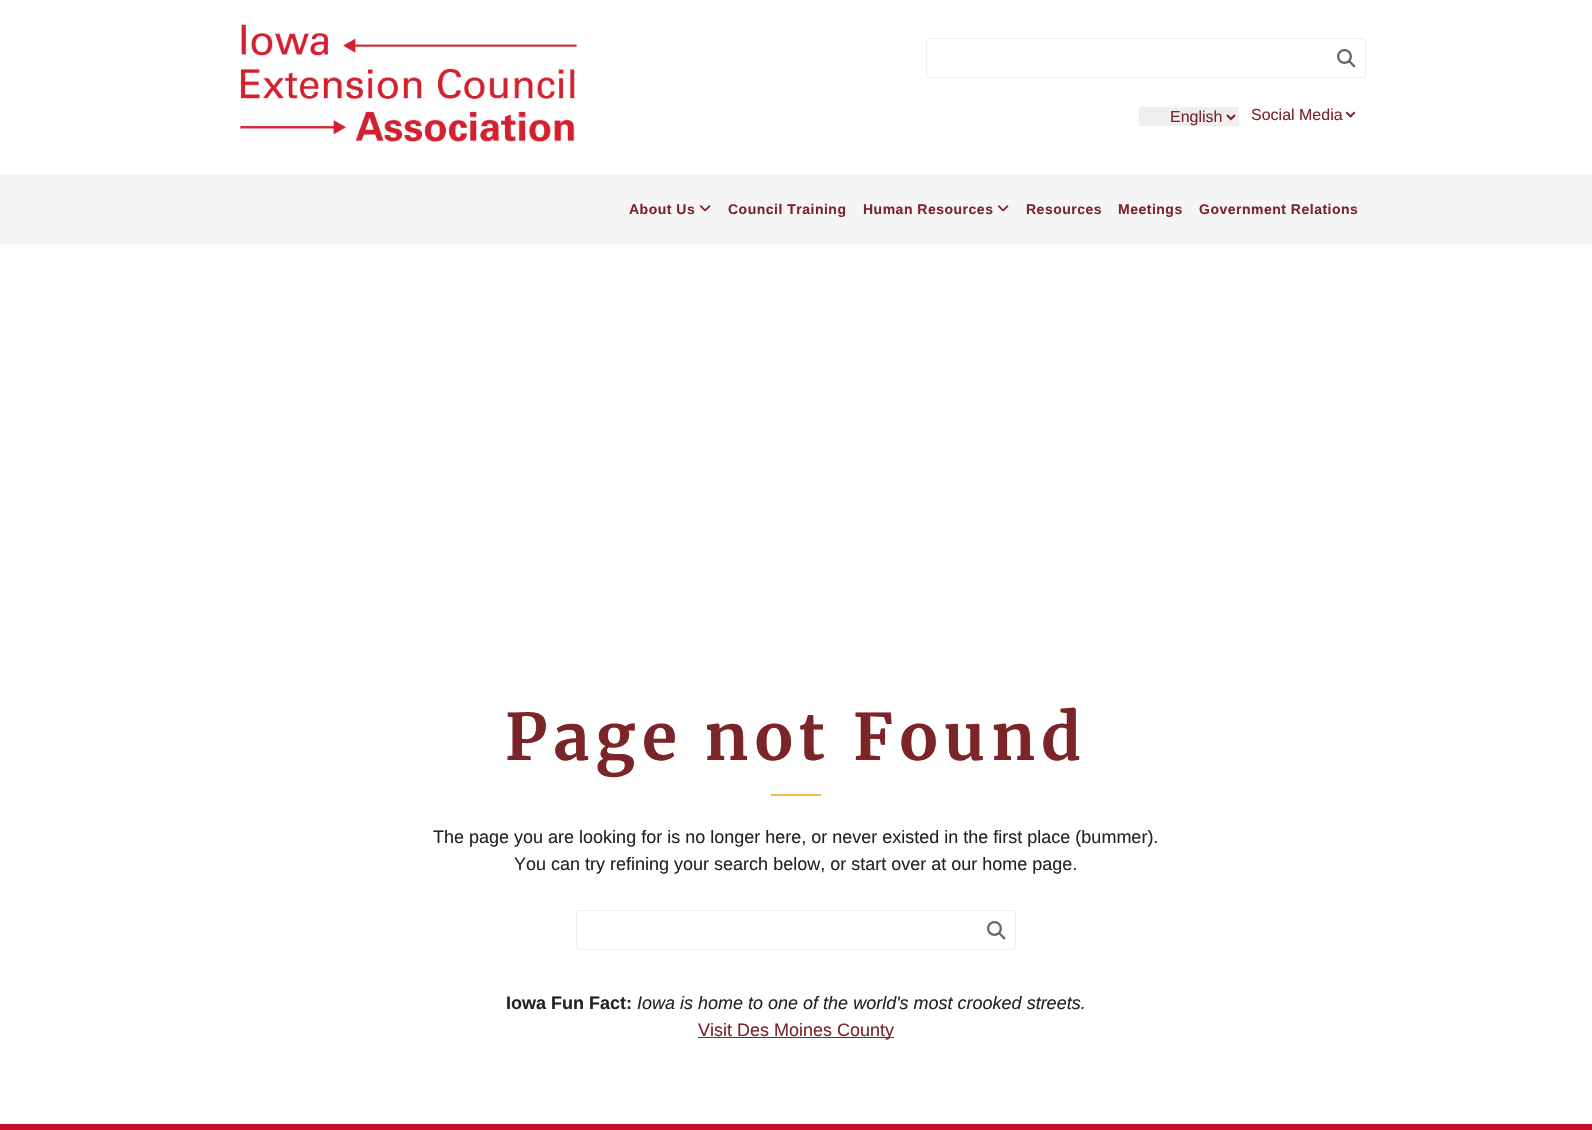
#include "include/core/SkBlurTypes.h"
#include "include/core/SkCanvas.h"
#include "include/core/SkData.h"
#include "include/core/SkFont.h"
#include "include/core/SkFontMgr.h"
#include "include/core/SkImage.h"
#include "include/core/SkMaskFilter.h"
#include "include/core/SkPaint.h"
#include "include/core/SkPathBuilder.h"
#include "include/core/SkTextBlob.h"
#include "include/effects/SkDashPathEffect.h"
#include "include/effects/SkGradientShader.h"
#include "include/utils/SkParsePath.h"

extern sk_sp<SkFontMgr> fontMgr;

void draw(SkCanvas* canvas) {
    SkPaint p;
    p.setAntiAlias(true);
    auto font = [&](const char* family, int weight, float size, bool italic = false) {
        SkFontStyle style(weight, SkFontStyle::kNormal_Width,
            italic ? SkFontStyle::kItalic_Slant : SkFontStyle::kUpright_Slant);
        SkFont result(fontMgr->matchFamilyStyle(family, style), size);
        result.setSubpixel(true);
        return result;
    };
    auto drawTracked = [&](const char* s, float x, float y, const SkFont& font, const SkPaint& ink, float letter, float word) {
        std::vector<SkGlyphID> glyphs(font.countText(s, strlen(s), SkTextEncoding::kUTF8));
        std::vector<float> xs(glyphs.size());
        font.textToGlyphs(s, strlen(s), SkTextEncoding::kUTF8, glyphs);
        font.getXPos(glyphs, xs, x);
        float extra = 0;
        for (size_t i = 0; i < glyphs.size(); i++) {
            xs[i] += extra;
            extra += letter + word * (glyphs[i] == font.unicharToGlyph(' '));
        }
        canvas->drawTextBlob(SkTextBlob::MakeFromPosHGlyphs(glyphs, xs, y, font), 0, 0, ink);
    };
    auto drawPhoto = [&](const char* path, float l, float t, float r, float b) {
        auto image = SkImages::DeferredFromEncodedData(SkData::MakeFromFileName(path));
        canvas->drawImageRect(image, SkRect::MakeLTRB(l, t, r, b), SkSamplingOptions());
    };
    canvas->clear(0xFFFFFFFF);
    drawPhoto("media/1.png", 239, 24, 577, 142);
    p.setColor(0xFFEEEEEE);
    canvas->drawPath(SkPathBuilder(SkPathFillType::kEvenOdd).moveTo(930, 38).lineTo(1326, 38).lineTo(1326, 78).lineTo(930, 78).cubicTo(928, 78, 926, 76, 926, 74).lineTo(926, 42).cubicTo(926, 40, 928, 38, 930, 38).close().moveTo(930, 39).lineTo(1326, 39).lineTo(1326, 77).lineTo(930, 77).cubicTo(928, 77, 927, 76, 927, 74).lineTo(927, 42).cubicTo(927, 40, 928, 39, 930, 39).close().detach(), p);
    canvas->drawPath(SkPathBuilder().moveTo(1326, 38).lineTo(1327, 39).lineTo(1362, 39).cubicTo(1363, 39, 1364, 39, 1364, 40).lineTo(1365, 39).cubicTo(1364, 38.5f, 1363, 38, 1362, 38).close().detach(), p);
    canvas->drawPath(SkPathBuilder().moveTo(1366, 74).lineTo(1366, 42).cubicTo(1366, 41, 1365.5f, 40, 1365, 39).lineTo(1364, 40).cubicTo(1365, 40, 1365, 41, 1365, 42).lineTo(1365, 74).cubicTo(1365, 75, 1365, 76, 1364, 76).lineTo(1365, 77).cubicTo(1365.5f, 76, 1366, 75, 1366, 74).close().detach(), p);
    canvas->drawPath(SkPathBuilder().moveTo(1362, 78).cubicTo(1363, 78, 1364, 77.5f, 1365, 77).lineTo(1364, 76).cubicTo(1364, 77, 1363, 77, 1362, 77).lineTo(1327, 77).lineTo(1326, 78).close().detach(), p);
    drawPhoto("media/2.png", 1337, 49, 1356, 68);
    p.setColor(0xFFEFEFEF);
    canvas->drawRect(SkRect::MakeLTRB(1139, 107, 1239, 126), p);
    p.setStyle(SkPaint::kStroke_Style);
    p.setStrokeWidth(2);
    p.setColor(0xFF7C2529);
    canvas->drawPath(SkPathBuilder().moveTo(1227, 115).lineTo(1231, 119).lineTo(1235, 115).detach(), p);
    auto font1 = font("Liberation Sans", 400, 16);
    p.setStyle(SkPaint::kFill_Style);
    canvas->drawString("English", 1170, 122, font1, p);
    canvas->drawString("Social Media", 1251, 120, font1, p);
    canvas->drawPath(SkPathBuilder().moveTo(1354, 111.5f).lineTo(1355.5f, 113).lineTo(1350.5f, 117.5f).lineTo(1349, 116.5f).close().detach(), p);
    canvas->drawPath(SkPathBuilder().moveTo(1347, 111.5f).lineTo(1352, 116.5f).lineTo(1350.5f, 117.5f).lineTo(1345.5f, 113).close().detach(), p);
    p.setColor(0xFFF5F5F5);
    canvas->drawRect(SkRect::MakeLTRB(0, 174, 1592, 244), p);
    auto font2 = font("Liberation Sans", 700, 14);
    p.setColor(0xFF7C2529);
    drawTracked("About Us", 629, 214, font2, p, 0.5f, 0);
    drawPhoto("media/3.png", 699, 205, 711, 212);
    drawTracked("Council Training", 728, 214, font2, p, 0.5f, 0);
    drawTracked("Human Resources", 863, 214, font2, p, 0.5f, 0);
    drawPhoto("media/3.png", 997, 205, 1009, 212);
    {
        const struct { const char* s; float x, y; } items[] = {
            {"Resources", 1026, 214},
            {"Meetings", 1118, 214},
            {"Government Relations", 1199, 214},
        };
        for (auto [s, x, y] : items) {
            drawTracked(s, x, y, font2, p, 0.5f, 0);
        }
    }
    auto font3 = font("Merriweather", 700, 64);
    drawTracked("Page not Found", 505, 760, font3, p, 6.4f, 0);
    p.setColor(0xFFF1BE48);
    canvas->drawRect(SkRect::MakeLTRB(771, 794, 821, 796), p);
    auto font4 = font("Liberation Sans", 400, 18);
    p.setColor(0xFF212529);
    canvas->drawString("The page you are looking for is no longer here, or never existed in the first place (bummer).", 433, 843, font4, p);
    canvas->drawString("You can try refining your search below, or start over at our home page.", 514, 870, font4, p);
    p.setColor(0xFFEEEEEE);
    canvas->drawPath(SkPathBuilder(SkPathFillType::kEvenOdd).moveTo(580, 910).lineTo(976, 910).lineTo(976, 950).lineTo(580, 950).cubicTo(578, 950, 576, 948, 576, 946).lineTo(576, 914).cubicTo(576, 912, 578, 910, 580, 910).close().moveTo(580, 911).lineTo(976, 911).lineTo(976, 949).lineTo(580, 949).cubicTo(578, 949, 577, 948, 577, 946).lineTo(577, 914).cubicTo(577, 912, 578, 911, 580, 911).close().detach(), p);
    canvas->drawPath(SkPathBuilder().moveTo(976, 910).lineTo(977, 911).lineTo(1012, 911).cubicTo(1013, 911, 1014, 911, 1014, 912).lineTo(1015, 911).cubicTo(1014, 910.5f, 1013, 910, 1012, 910).close().detach(), p);
    canvas->drawPath(SkPathBuilder().moveTo(1016, 946).lineTo(1016, 914).cubicTo(1016, 913, 1015.5f, 912, 1015, 911).lineTo(1014, 912).cubicTo(1015, 912, 1015, 913, 1015, 914).lineTo(1015, 946).cubicTo(1015, 947, 1015, 948, 1014, 948).lineTo(1015, 949).cubicTo(1015.5f, 948, 1016, 947, 1016, 946).close().detach(), p);
    canvas->drawPath(SkPathBuilder().moveTo(1012, 950).cubicTo(1013, 950, 1014, 949.5f, 1015, 949).lineTo(1014, 948).cubicTo(1014, 949, 1013, 949, 1012, 949).lineTo(977, 949).lineTo(976, 950).close().detach(), p);
    drawPhoto("media/2.png", 987, 921, 1006, 940);
    auto font5 = font("Liberation Sans", 700, 18);
    p.setColor(0xFF212529);
    canvas->drawString("Iowa Fun Fact:", 506, 1009, font5, p);
    auto font6 = font("Liberation Sans", 400, 18, true);
    canvas->drawString("Iowa is home to one of the world's most crooked streets.", 637, 1009, font6, p);
    p.setColor(0xFF7C2529);
    canvas->drawRect(SkRect::MakeLTRB(698, 1037, 894, 1038), p);
    canvas->drawString("Visit Des Moines County", 698, 1036, font4, p);
    p.setColor(0xFFC8102E);
    canvas->drawRect(SkRect::MakeLTRB(0, 1124, 1592, 1130), p);
}
